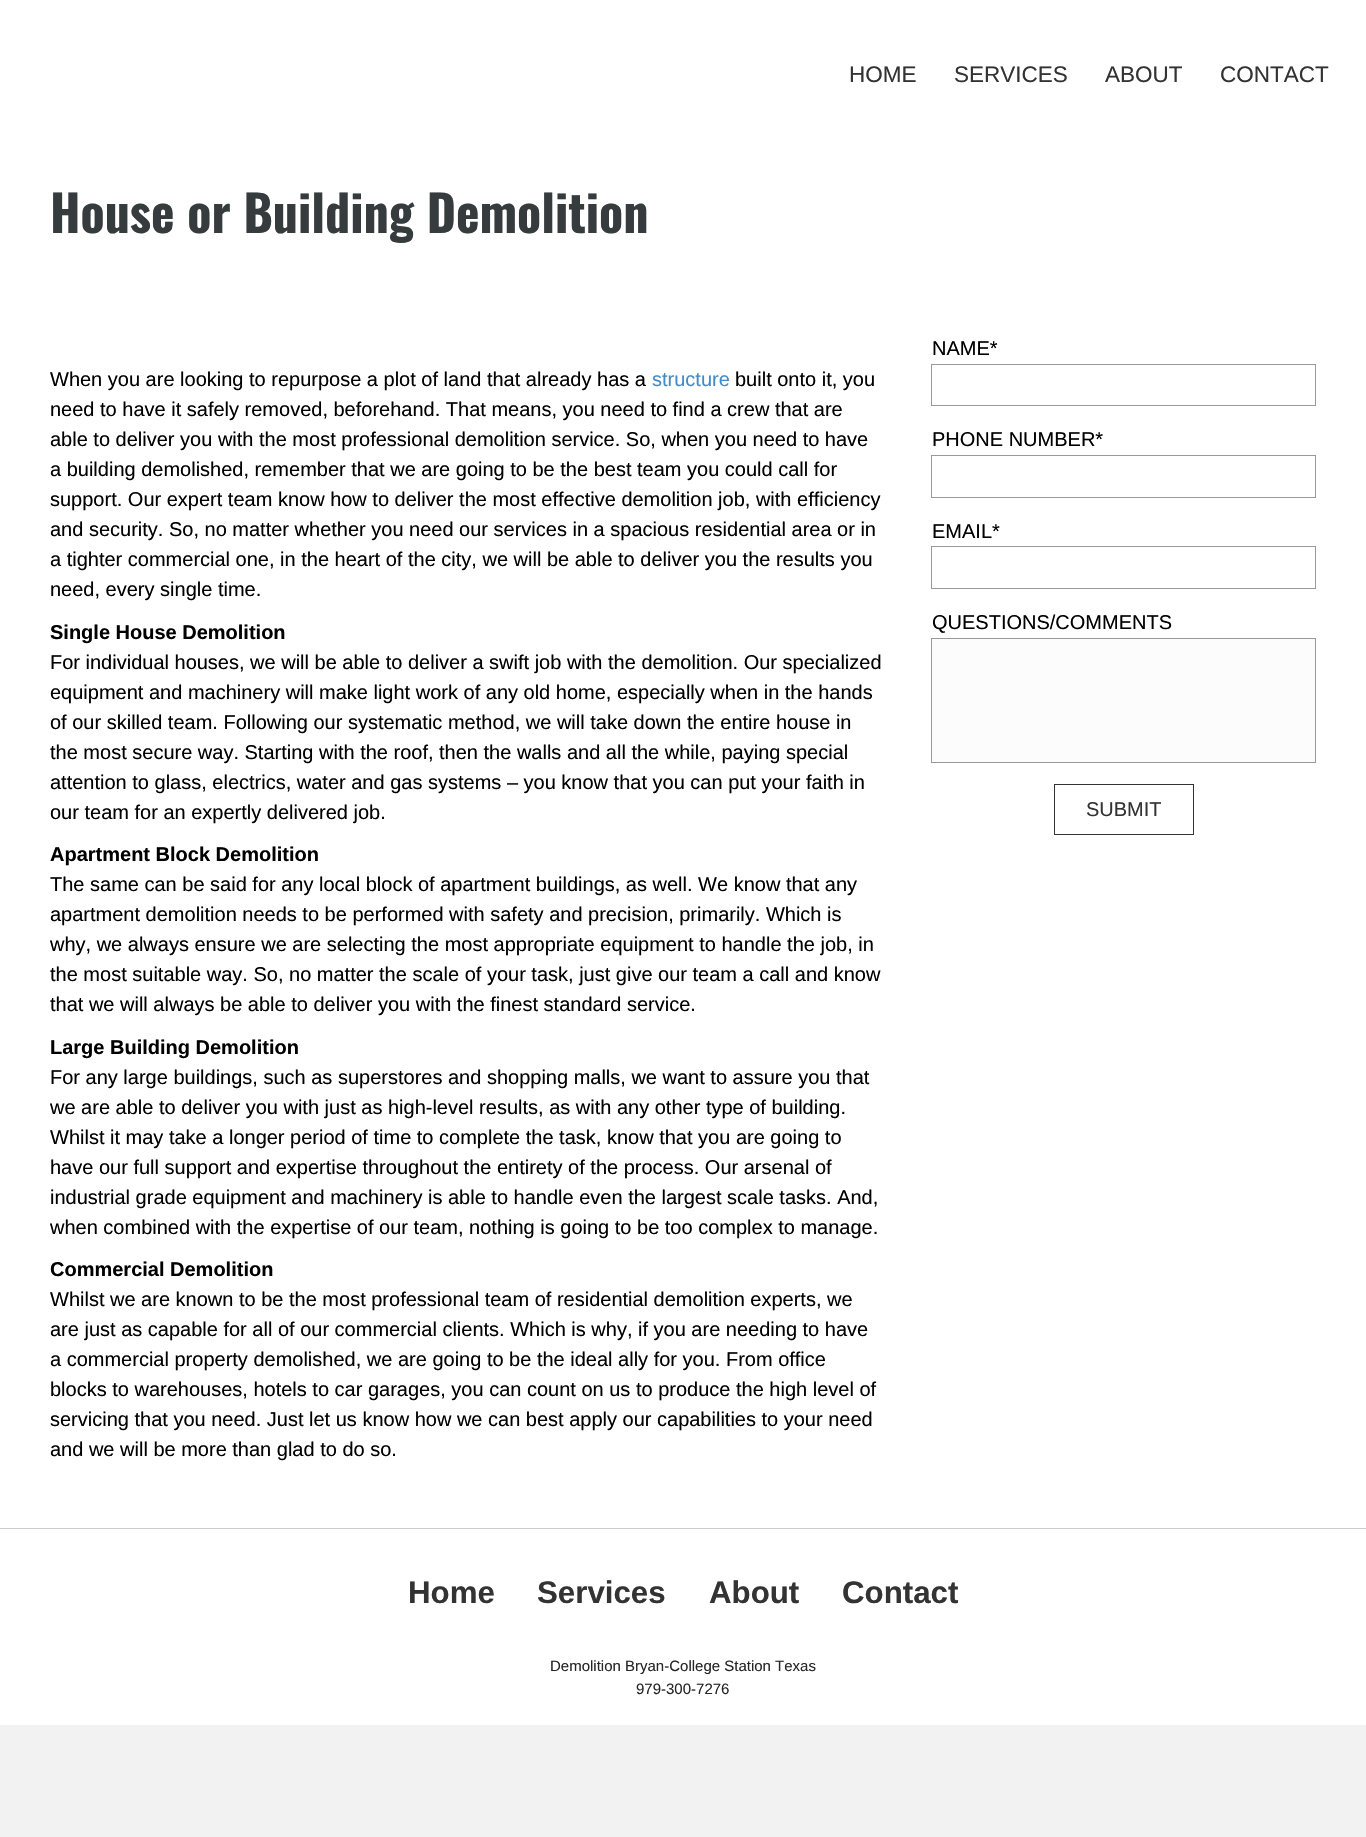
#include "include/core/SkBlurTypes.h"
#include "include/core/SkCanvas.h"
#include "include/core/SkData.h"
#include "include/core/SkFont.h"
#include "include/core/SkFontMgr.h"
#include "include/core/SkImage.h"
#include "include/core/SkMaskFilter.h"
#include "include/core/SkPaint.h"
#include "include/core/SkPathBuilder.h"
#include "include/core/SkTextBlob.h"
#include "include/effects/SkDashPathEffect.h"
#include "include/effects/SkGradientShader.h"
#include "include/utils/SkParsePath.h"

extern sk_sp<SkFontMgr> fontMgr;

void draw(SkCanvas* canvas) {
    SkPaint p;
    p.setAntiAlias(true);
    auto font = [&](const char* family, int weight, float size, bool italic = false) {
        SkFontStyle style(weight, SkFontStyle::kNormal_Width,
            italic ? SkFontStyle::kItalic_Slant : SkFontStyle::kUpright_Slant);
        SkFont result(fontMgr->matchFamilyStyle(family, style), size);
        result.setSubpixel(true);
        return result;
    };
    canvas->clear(0xFFF2F2F2);
    p.setColor(0xFFFFFFFF);
    canvas->drawRect(SkRect::MakeLTRB(0, 0, 1366, 1528), p);
    auto font1 = font("Liberation Sans", 400, 22.5f);
    p.setColor(0xFF333333);
    {
        const struct { const char* s; float x, y; } items[] = {
            {"HOME", 849, 82},
            {"SERVICES", 954, 82},
            {"ABOUT", 1105, 82},
            {"CONTACT", 1220, 82},
        };
        for (auto [s, x, y] : items) {
            canvas->drawString(s, x, y, font1, p);
        }
    }
    auto font2 = font("Oswald", 700, 50);
    p.setColor(0xFF363B3E);
    canvas->drawString("House or Building Demolition", 50, 233, font2, p);
    auto font3 = font("Liberation Sans", 400, 20);
    p.setColor(0xFF000000);
    canvas->drawString("When you are looking to repurpose a plot of land that already has a", 50, 386, font3, p);
    p.setColor(0xFF428BCA);
    canvas->drawString("structure", 652, 386, font3, p);
    p.setColor(0xFF000000);
    {
        const struct { const char* s; float x, y; } items[] = {
            {"built onto it, you", 735, 386},
            {"need to have it safely removed, beforehand. That means, you need to find a crew that are", 50, 416},
            {"able to deliver you with the most professional demolition service. So, when you need to have", 50, 446},
            {"a building demolished, remember that we are going to be the best team you could call for", 50, 476},
            {"support. Our expert team know how to deliver the most effective demolition job, with efficiency", 50, 506},
            {"and security. So, no matter whether you need our services in a spacious residential area or in", 50, 536},
            {"a tighter commercial one, in the heart of the city, we will be able to deliver you the results you", 50, 566},
            {"need, every single time.", 50, 596},
        };
        for (auto [s, x, y] : items) {
            canvas->drawString(s, x, y, font3, p);
        }
    }
    auto font4 = font("Liberation Sans", 700, 20);
    canvas->drawString("Single House Demolition", 50, 639, font4, p);
    {
        const struct { const char* s; float x, y; } items[] = {
            {"For individual houses, we will be able to deliver a swift job with the demolition. Our specialized", 50, 669},
            {"equipment and machinery will make light work of any old home, especially when in the hands", 50, 699},
            {"of our skilled team. Following our systematic method, we will take down the entire house in", 50, 729},
            {"the most secure way. Starting with the roof, then the walls and all the while, paying special", 50, 759},
            {"attention to glass, electrics, water and gas systems – you know that you can put your faith in", 50, 789},
            {"our team for an expertly delivered job.", 50, 819},
        };
        for (auto [s, x, y] : items) {
            canvas->drawString(s, x, y, font3, p);
        }
    }
    canvas->drawString("Apartment Block Demolition", 50, 861, font4, p);
    {
        const struct { const char* s; float x, y; } items[] = {
            {"The same can be said for any local block of apartment buildings, as well. We know that any", 50, 891},
            {"apartment demolition needs to be performed with safety and precision, primarily. Which is", 50, 921},
            {"why, we always ensure we are selecting the most appropriate equipment to handle the job, in", 50, 951},
            {"the most suitable way. So, no matter the scale of your task, just give our team a call and know", 50, 981},
            {"that we will always be able to deliver you with the finest standard service.", 50, 1011},
        };
        for (auto [s, x, y] : items) {
            canvas->drawString(s, x, y, font3, p);
        }
    }
    canvas->drawString("Large Building Demolition", 50, 1054, font4, p);
    {
        const struct { const char* s; float x, y; } items[] = {
            {"For any large buildings, such as superstores and shopping malls, we want to assure you that", 50, 1084},
            {"we are able to deliver you with just as high-level results, as with any other type of building.", 50, 1114},
            {"Whilst it may take a longer period of time to complete the task, know that you are going to", 50, 1144},
            {"have our full support and expertise throughout the entirety of the process. Our arsenal of", 50, 1174},
            {"industrial grade equipment and machinery is able to handle even the largest scale tasks. And,", 50, 1204},
            {"when combined with the expertise of our team, nothing is going to be too complex to manage.", 50, 1234},
        };
        for (auto [s, x, y] : items) {
            canvas->drawString(s, x, y, font3, p);
        }
    }
    canvas->drawString("Commercial Demolition", 50, 1276, font4, p);
    {
        const struct { const char* s; float x, y; } items[] = {
            {"Whilst we are known to be the most professional team of residential demolition experts, we", 50, 1306},
            {"are just as capable for all of our commercial clients. Which is why, if you are needing to have", 50, 1336},
            {"a commercial property demolished, we are going to be the ideal ally for you. From office", 50, 1366},
            {"blocks to warehouses, hotels to car garages, you can count on us to produce the high level of", 50, 1396},
            {"servicing that you need. Just let us know how we can best apply our capabilities to your need", 50, 1426},
            {"and we will be more than glad to do so.", 50, 1456},
            {"NAME*", 932, 355},
        };
        for (auto [s, x, y] : items) {
            canvas->drawString(s, x, y, font3, p);
        }
    }
    p.setStyle(SkPaint::kStroke_Style);
    p.setStrokeWidth(1);
    p.setColor(0xFF999999);
    canvas->drawRect(SkRect::MakeLTRB(931.5f, 364.5f, 1315.5f, 405.5f), p);
    p.setStyle(SkPaint::kFill_Style);
    p.setColor(0xFF000000);
    canvas->drawString("PHONE NUMBER*", 932, 446, font3, p);
    p.setStyle(SkPaint::kStroke_Style);
    p.setColor(0xFF999999);
    canvas->drawRect(SkRect::MakeLTRB(931.5f, 455.5f, 1315.5f, 497.5f), p);
    p.setStyle(SkPaint::kFill_Style);
    p.setColor(0xFF000000);
    canvas->drawString("EMAIL*", 932, 538, font3, p);
    p.setStyle(SkPaint::kStroke_Style);
    p.setColor(0xFF999999);
    canvas->drawRect(SkRect::MakeLTRB(931.5f, 546.5f, 1315.5f, 588.5f), p);
    p.setStyle(SkPaint::kFill_Style);
    p.setColor(0xFF000000);
    canvas->drawString("QUESTIONS/COMMENTS", 932, 629, font3, p);
    p.setColor(0xFFFCFCFC);
    canvas->drawRect(SkRect::MakeLTRB(931.5f, 638.5f, 1315.5f, 762.5f), p);
    p.setStyle(SkPaint::kStroke_Style);
    p.setColor(0xFF999999);
    canvas->drawRect(SkRect::MakeLTRB(931.5f, 638.5f, 1315.5f, 762.5f), p);
    p.setColor(0xFF333333);
    canvas->drawRect(SkRect::MakeLTRB(1054.5f, 784.5f, 1193.5f, 834.5f), p);
    p.setStyle(SkPaint::kFill_Style);
    canvas->drawString("SUBMIT", 1086, 816, font3, p);
    p.setColor(0xFFFFFFFF);
    canvas->drawRect(SkRect::MakeLTRB(0, 1529, 1366, 1725), p);
    p.setColor(0xFFCCCCCC);
    canvas->drawRect(SkRect::MakeLTRB(0, 1528, 1366, 1529), p);
    auto font5 = font("Liberation Sans", 700, 31.25f);
    p.setColor(0xFF333333);
    {
        const struct { const char* s; float x, y; } items[] = {
            {"Home", 408, 1603},
            {"Services", 537, 1603},
            {"About", 709, 1603},
            {"Contact", 842, 1603},
        };
        for (auto [s, x, y] : items) {
            canvas->drawString(s, x, y, font5, p);
        }
    }
    auto font6 = font("Liberation Sans", 400, 15);
    p.setColor(0xFF262626);
    canvas->drawString("Demolition Bryan-College Station Texas", 550, 1671, font6, p);
    canvas->drawString("979-300-7276", 636, 1694, font6, p);
}
